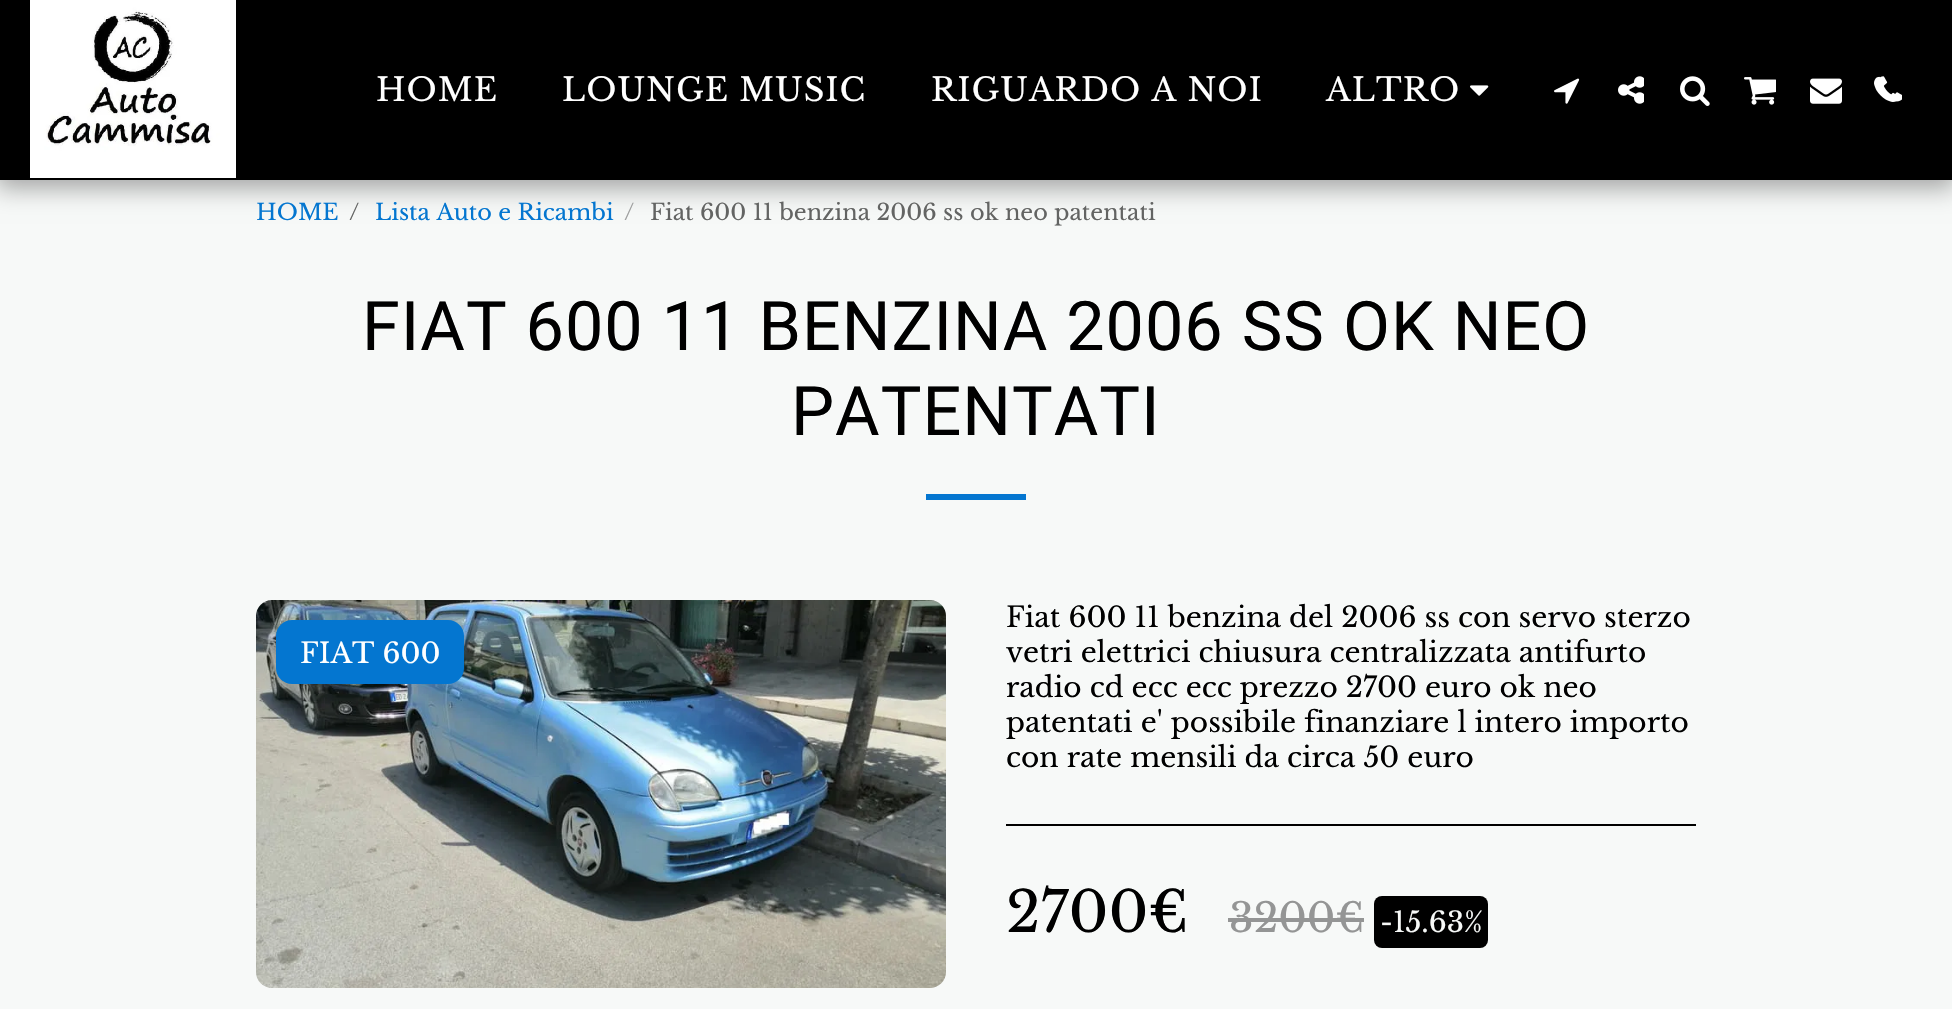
#include "include/core/SkBlurTypes.h"
#include "include/core/SkCanvas.h"
#include "include/core/SkData.h"
#include "include/core/SkFont.h"
#include "include/core/SkFontMgr.h"
#include "include/core/SkImage.h"
#include "include/core/SkMaskFilter.h"
#include "include/core/SkPaint.h"
#include "include/core/SkPathBuilder.h"
#include "include/core/SkTextBlob.h"
#include "include/effects/SkDashPathEffect.h"
#include "include/effects/SkGradientShader.h"
#include "include/utils/SkParsePath.h"

extern sk_sp<SkFontMgr> fontMgr;

void draw(SkCanvas* canvas) {
    SkPaint p;
    p.setAntiAlias(true);
    auto font = [&](const char* family, int weight, float size, bool italic = false) {
        SkFontStyle style(weight, SkFontStyle::kNormal_Width,
            italic ? SkFontStyle::kItalic_Slant : SkFontStyle::kUpright_Slant);
        SkFont result(fontMgr->matchFamilyStyle(family, style), size);
        result.setSubpixel(true);
        return result;
    };
    auto drawTracked = [&](const char* s, float x, float y, const SkFont& font, const SkPaint& ink, float letter, float word) {
        std::vector<SkGlyphID> glyphs(font.countText(s, strlen(s), SkTextEncoding::kUTF8));
        std::vector<float> xs(glyphs.size());
        font.textToGlyphs(s, strlen(s), SkTextEncoding::kUTF8, glyphs);
        font.getXPos(glyphs, xs, x);
        float extra = 0;
        for (size_t i = 0; i < glyphs.size(); i++) {
            xs[i] += extra;
            extra += letter + word * (glyphs[i] == font.unicharToGlyph(' '));
        }
        canvas->drawTextBlob(SkTextBlob::MakeFromPosHGlyphs(glyphs, xs, y, font), 0, 0, ink);
    };
    auto drawPhoto = [&](const char* path, float l, float t, float r, float b) {
        auto image = SkImages::DeferredFromEncodedData(SkData::MakeFromFileName(path));
        canvas->drawImageRect(image, SkRect::MakeLTRB(l, t, r, b), SkSamplingOptions());
    };
    canvas->clear(0xFFF7F9F8);
    p.setColor(0x59000000);
    p.setMaskFilter(SkMaskFilter::MakeBlur(kNormal_SkBlurStyle, 12));
    canvas->drawRect(SkRect::MakeLTRB(-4, 0, 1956, 188), p);
    p.setMaskFilter(nullptr);
    p.setColor(0xFF000000);
    canvas->drawRect(SkRect::MakeLTRB(0, 0, 1952, 180), p);
    drawPhoto("media/1.png", 30, 0, 236, 178);
    auto font1 = font("Libre Baskerville", 400, 32);
    p.setColor(0xFFFFFFFF);
    {
        const struct { const char* s; float x, y; } items[] = {
            {"HOME", 376, 101},
            {"LOUNGE MUSIC", 562, 101},
            {"RIGUARDO A NOI", 931, 101},
            {"ALTRO", 1326, 101},
        };
        for (auto [s, x, y] : items) {
            drawTracked(s, x, y, font1, p, 1, 0);
        }
    }
    drawPhoto("media/2.png", 1470, 85, 1489, 96);
    drawPhoto("media/3.png", 1554, 78, 1580, 104);
    drawPhoto("media/4.png", 1618, 76, 1644, 104);
    drawPhoto("media/5.png", 1680, 76, 1710, 106);
    drawPhoto("media/6.png", 1744, 77, 1776, 105);
    drawPhoto("media/7.png", 1810, 78, 1842, 104);
    drawPhoto("media/8.png", 1879, 76, 1902, 102);
    drawPhoto("media/9.png", 1874, 76, 1897, 102);
    auto font2 = font("Libre Baskerville", 400, 22.4f);
    p.setColor(0xFF0476D0);
    canvas->drawString("HOME", 256, 220, font2, p);
    p.setColor(0xFF636463);
    canvas->drawString("/", 349, 220, font2, p);
    p.setColor(0xFF0476D0);
    canvas->drawString("Lista Auto e Ricambi", 375, 220, font2, p);
    p.setColor(0xFF9E9F9F);
    canvas->drawString("/", 624, 220, font2, p);
    p.setColor(0xFF636463);
    canvas->drawString("Fiat 600 11 benzina 2006 ss", 650, 220, font2, p);
    canvas->drawString("ok neo patentati", 970, 220, font2, p);
    auto font3 = font("Roboto", 400, 68.3f);
    p.setColor(0xFF000000);
    {
        const struct { const char* s; float x, y; } items[] = {
            {"FIAT 600 11 BENZINA 2006 SS", 362, 350},
            {"OK NEO", 1343, 350},
            {"PATENTATI", 791, 435},
        };
        for (auto [s, x, y] : items) {
            drawTracked(s, x, y, font3, p, 1, 0);
        }
    }
    p.setColor(0xFF0476D0);
    canvas->drawRect(SkRect::MakeLTRB(926, 494, 1026, 500), p);
    drawPhoto("media/10.png", 256, 600, 946, 988);
    canvas->drawRoundRect(SkRect::MakeLTRB(276, 620, 464, 684), 16, 16, p);
    auto font4 = font("Libre Baskerville", 400, 28);
    p.setColor(0xFFFFFFFF);
    canvas->drawString("FIAT 600", 300, 663, font4, p);
    p.setColor(0xFF000000);
    {
        const struct { const char* s; float x, y; } items[] = {
            {"Fiat 600 11 benzina del 2006 ss con servo sterzo", 1006, 627},
            {"vetri elettrici chiusura centralizzata antifurto", 1006, 662},
            {"radio cd ecc ecc prezzo 2700 euro ok neo", 1006, 697},
            {"patentati e' possibile finanziare l intero importo", 1006, 732},
            {"con rate mensili da circa 50 euro", 1006, 767},
        };
        for (auto [s, x, y] : items) {
            canvas->drawString(s, x, y, font4, p);
        }
    }
    canvas->drawRect(SkRect::MakeLTRB(1006, 824, 1696, 826), p);
    auto font5 = font("Libre Baskerville", 400, 56);
    canvas->drawString("2700€", 1006, 932, font5, p);
    auto font6 = font("Libre Baskerville", 400, 40);
    p.setColor(0xFF949595);
    canvas->drawString("3200€", 1229, 932, font6, p);
    canvas->drawRect(SkRect::MakeLTRB(1228, 918, 1364, 922), p);
    p.setColor(0xFF000000);
    canvas->drawRoundRect(SkRect::MakeLTRB(1374, 896, 1488, 948), 8, 8, p);
    p.setColor(0xFFF7F9F8);
    canvas->drawString("-15.63%", 1380, 932, font4, p);
}
